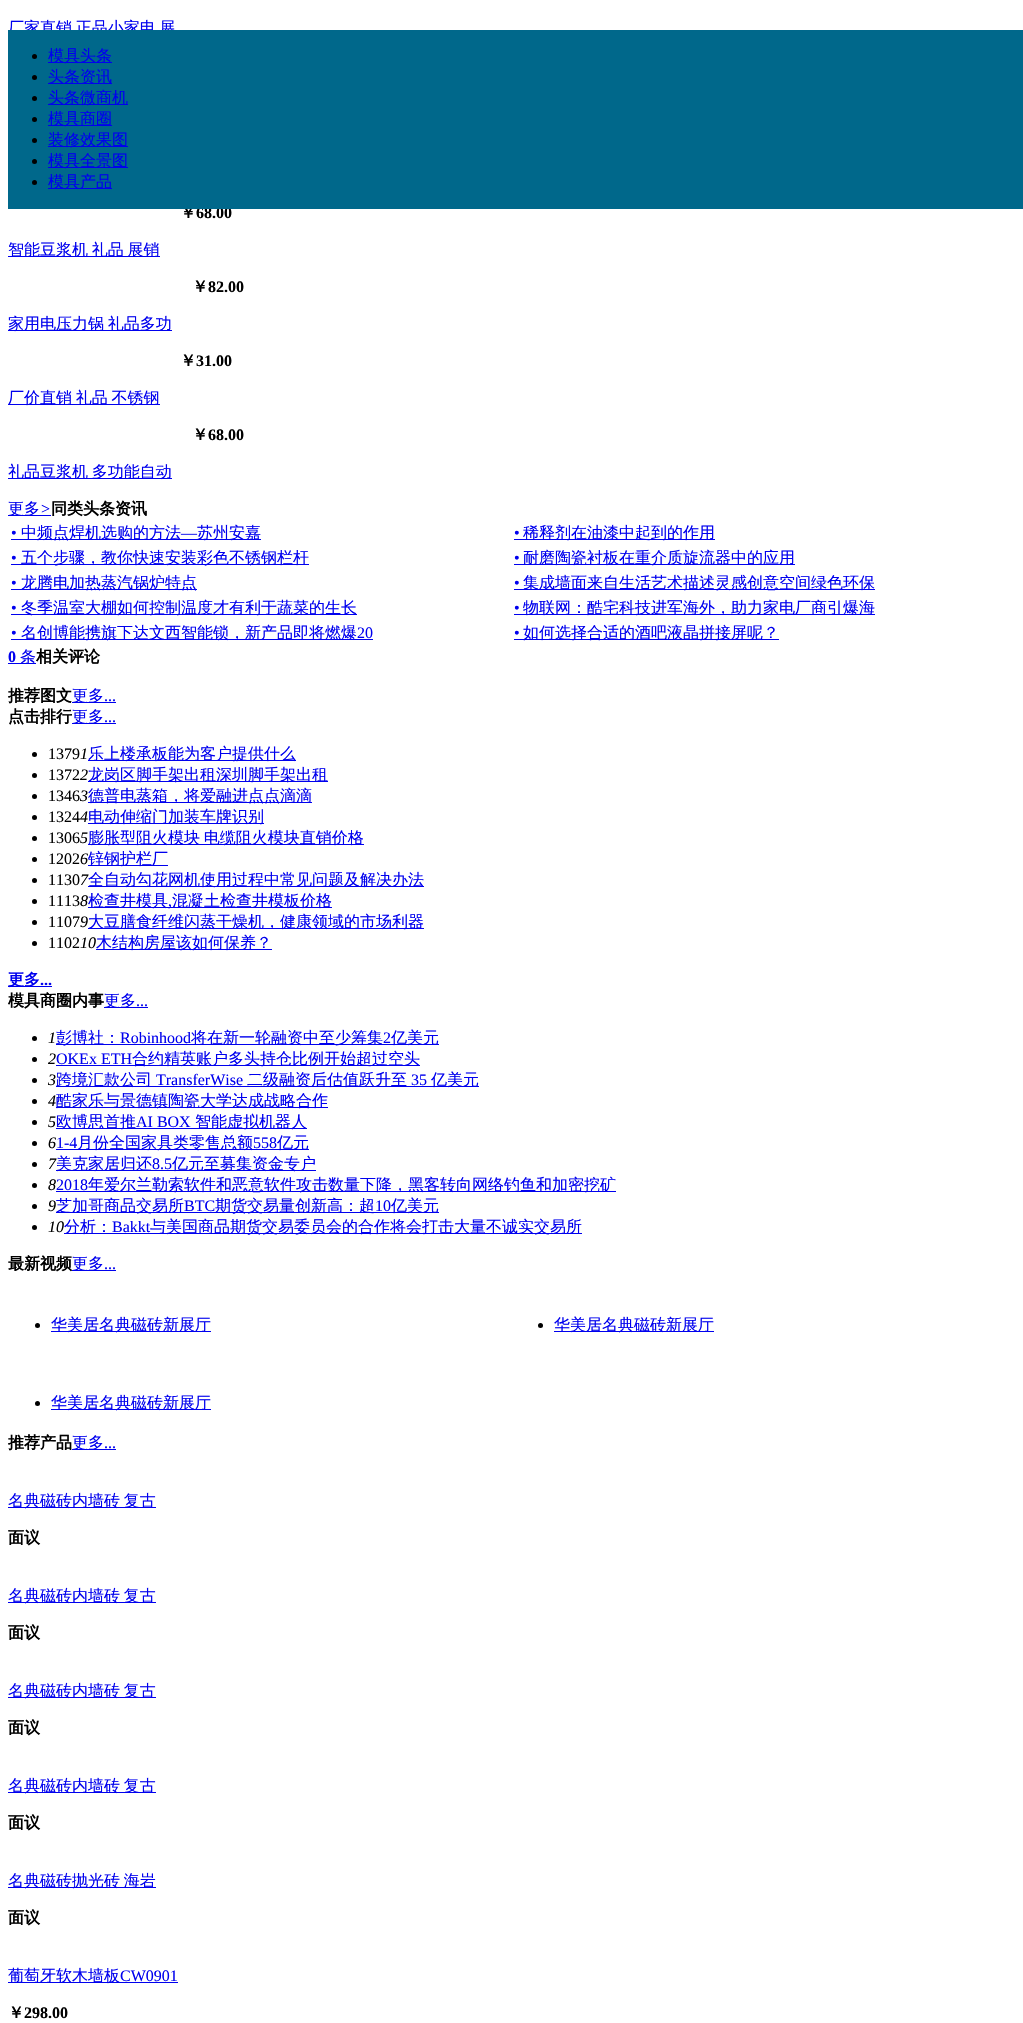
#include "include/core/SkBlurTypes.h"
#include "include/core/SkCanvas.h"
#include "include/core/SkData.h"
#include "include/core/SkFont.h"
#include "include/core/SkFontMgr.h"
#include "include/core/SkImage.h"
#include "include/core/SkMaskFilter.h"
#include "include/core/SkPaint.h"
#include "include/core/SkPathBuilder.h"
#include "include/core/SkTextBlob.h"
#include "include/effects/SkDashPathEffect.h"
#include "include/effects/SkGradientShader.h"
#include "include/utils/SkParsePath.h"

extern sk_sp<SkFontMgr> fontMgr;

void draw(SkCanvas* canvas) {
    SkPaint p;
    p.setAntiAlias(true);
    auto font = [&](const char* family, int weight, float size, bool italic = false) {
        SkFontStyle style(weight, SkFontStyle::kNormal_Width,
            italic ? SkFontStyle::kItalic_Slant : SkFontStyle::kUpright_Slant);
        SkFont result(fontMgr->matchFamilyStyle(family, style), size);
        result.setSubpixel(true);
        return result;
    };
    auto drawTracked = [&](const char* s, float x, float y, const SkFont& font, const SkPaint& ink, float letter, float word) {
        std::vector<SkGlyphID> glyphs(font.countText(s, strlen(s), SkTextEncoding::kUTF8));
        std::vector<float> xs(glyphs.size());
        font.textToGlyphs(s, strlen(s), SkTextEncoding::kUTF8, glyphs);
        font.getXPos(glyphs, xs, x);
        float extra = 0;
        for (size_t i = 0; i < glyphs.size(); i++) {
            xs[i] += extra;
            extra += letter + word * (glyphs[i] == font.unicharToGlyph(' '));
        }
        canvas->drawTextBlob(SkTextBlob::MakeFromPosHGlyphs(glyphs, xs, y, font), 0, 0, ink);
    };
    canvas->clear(0xFFFFFFFF);
    auto font1 = font("WenQuanYi Zen Hei", 500, 16);
    p.setColor(0xFF0000EE);
    drawTracked("厂家直销 正品小家电 展", 8, 33, font1, p, 0, -1);
    auto font2 = font("WenQuanYi Zen Hei", 700, 16);
    p.setColor(0xFF000000);
    canvas->drawString("￥", 180, 218, font2, p);
    auto font3 = font("Liberation Serif", 700, 16);
    canvas->drawString("68.00", 196, 218, font3, p);
    p.setColor(0xFF0000EE);
    canvas->drawRect(SkRect::MakeLTRB(8, 256, 160, 257), p);
    drawTracked("智能豆浆机 礼品 展销", 8, 255, font1, p, 0, -1);
    p.setColor(0xFF000000);
    canvas->drawString("￥", 192, 292, font2, p);
    canvas->drawString("82.00", 208, 292, font3, p);
    p.setColor(0xFF0000EE);
    canvas->drawRect(SkRect::MakeLTRB(8, 330, 172, 331), p);
    drawTracked("家用电压力锅 礼品多功", 8, 329, font1, p, 0, -1);
    p.setColor(0xFF000000);
    canvas->drawString("￥", 180, 366, font2, p);
    canvas->drawString("31.00", 196, 366, font3, p);
    p.setColor(0xFF0000EE);
    canvas->drawRect(SkRect::MakeLTRB(8, 404, 160, 405), p);
    drawTracked("厂价直销 礼品 不锈钢", 8, 403, font1, p, 0, -1);
    p.setColor(0xFF000000);
    canvas->drawString("￥", 192, 440, font2, p);
    canvas->drawString("68.00", 208, 440, font3, p);
    p.setColor(0xFF0000EE);
    canvas->drawRect(SkRect::MakeLTRB(8, 478, 172, 479), p);
    drawTracked("礼品豆浆机 多功能自动", 8, 477, font1, p, 0, -1);
    canvas->drawRect(SkRect::MakeLTRB(8, 515, 51, 516), p);
    canvas->drawString("更多", 8, 514, font1, p);
    auto font4 = font("Liberation Serif", 400, 16, true);
    canvas->drawString(">", 40, 514, font4, p);
    p.setColor(0xFF000000);
    canvas->drawString("同类头条资讯", 51, 514, font2, p);
    auto font5 = font("Liberation Serif", 400, 16);
    p.setColor(0xFF0000EE);
    canvas->drawString("•", 11, 538, font5, p);
    canvas->drawRect(SkRect::MakeLTRB(11, 539, 261, 540), p);
    canvas->drawString("中频点焊机选购的方法", 21, 538, font1, p);
    canvas->drawString("—", 181, 538, font5, p);
    canvas->drawString("苏州安嘉", 197, 538, font1, p);
    canvas->drawString("•", 514, 538, font5, p);
    canvas->drawRect(SkRect::MakeLTRB(514, 539, 715, 540), p);
    canvas->drawString("稀释剂在油漆中起到的作用", 523, 538, font1, p);
    canvas->drawString("•", 11, 563, font5, p);
    canvas->drawRect(SkRect::MakeLTRB(11, 564, 309, 565), p);
    canvas->drawString("五个步骤，教你快速安装彩色不锈钢栏杆", 21, 563, font1, p);
    canvas->drawString("•", 514, 563, font5, p);
    canvas->drawRect(SkRect::MakeLTRB(514, 564, 795, 565), p);
    canvas->drawString("耐磨陶瓷衬板在重介质旋流器中的应用", 523, 563, font1, p);
    canvas->drawString("•", 11, 588, font5, p);
    canvas->drawRect(SkRect::MakeLTRB(11, 589, 197, 590), p);
    canvas->drawString("龙腾电加热蒸汽锅炉特点", 21, 588, font1, p);
    canvas->drawString("•", 514, 588, font5, p);
    canvas->drawRect(SkRect::MakeLTRB(514, 589, 875, 590), p);
    canvas->drawString("集成墙面来自生活艺术描述灵感创意空间绿色环保", 523, 588, font1, p);
    canvas->drawString("•", 11, 613, font5, p);
    canvas->drawRect(SkRect::MakeLTRB(11, 614, 357, 615), p);
    canvas->drawString("冬季温室大棚如何控制温度才有利于蔬菜的生长", 21, 613, font1, p);
    canvas->drawString("•", 514, 613, font5, p);
    canvas->drawRect(SkRect::MakeLTRB(514, 614, 875, 615), p);
    canvas->drawString("物联网：酷宅科技进军海外，助力家电厂商引爆海", 523, 613, font1, p);
    canvas->drawString("•", 11, 638, font5, p);
    canvas->drawRect(SkRect::MakeLTRB(11, 639, 373, 640), p);
    canvas->drawString("名创博能携旗下达文西智能锁，新产品即将燃爆", 21, 638, font1, p);
    canvas->drawString("20", 357, 638, font5, p);
    canvas->drawString("•", 514, 638, font5, p);
    canvas->drawRect(SkRect::MakeLTRB(514, 639, 779, 640), p);
    canvas->drawString("如何选择合适的酒吧液晶拼接屏呢？", 523, 638, font1, p);
    canvas->drawString("0", 8, 662, font3, p);
    canvas->drawRect(SkRect::MakeLTRB(8, 663, 36, 664), p);
    canvas->drawString("条", 20, 662, font1, p);
    p.setColor(0xFF000000);
    canvas->drawString("相关评论", 36, 662, font2, p);
    canvas->drawString("推荐图文", 8, 701, font2, p);
    p.setColor(0xFF0000EE);
    canvas->drawRect(SkRect::MakeLTRB(72, 702, 116, 703), p);
    canvas->drawString("更多", 72, 701, font1, p);
    canvas->drawString("...", 104, 701, font5, p);
    p.setColor(0xFF000000);
    canvas->drawString("点击排行", 8, 722, font2, p);
    p.setColor(0xFF0000EE);
    canvas->drawRect(SkRect::MakeLTRB(72, 723, 116, 724), p);
    canvas->drawString("更多", 72, 722, font1, p);
    canvas->drawString("...", 104, 722, font5, p);
    p.setColor(0xFF000000);
    canvas->drawCircle(34.5f, 754.5f, 2.5f, p);
    canvas->drawString("1379", 48, 759, font5, p);
    canvas->drawString("1", 80, 759, font4, p);
    p.setColor(0xFF0000EE);
    canvas->drawRect(SkRect::MakeLTRB(88, 760, 296, 761), p);
    canvas->drawString("乐上楼承板能为客户提供什么", 88, 759, font1, p);
    p.setColor(0xFF000000);
    canvas->drawCircle(34.5f, 775.5f, 2.5f, p);
    canvas->drawString("1372", 48, 780, font5, p);
    canvas->drawString("2", 80, 780, font4, p);
    p.setColor(0xFF0000EE);
    canvas->drawRect(SkRect::MakeLTRB(88, 781, 328, 782), p);
    canvas->drawString("龙岗区脚手架出租深圳脚手架出租", 88, 780, font1, p);
    p.setColor(0xFF000000);
    canvas->drawCircle(34.5f, 796.5f, 2.5f, p);
    canvas->drawString("1346", 48, 801, font5, p);
    canvas->drawString("3", 80, 801, font4, p);
    p.setColor(0xFF0000EE);
    canvas->drawRect(SkRect::MakeLTRB(88, 802, 312, 803), p);
    canvas->drawString("德普电蒸箱，将爱融进点点滴滴", 88, 801, font1, p);
    p.setColor(0xFF000000);
    canvas->drawCircle(34.5f, 817.5f, 2.5f, p);
    canvas->drawString("1324", 48, 822, font5, p);
    canvas->drawString("4", 80, 822, font4, p);
    p.setColor(0xFF0000EE);
    canvas->drawRect(SkRect::MakeLTRB(88, 823, 264, 824), p);
    canvas->drawString("电动伸缩门加装车牌识别", 88, 822, font1, p);
    p.setColor(0xFF000000);
    canvas->drawCircle(34.5f, 838.5f, 2.5f, p);
    canvas->drawString("1306", 48, 843, font5, p);
    canvas->drawString("5", 80, 843, font4, p);
    p.setColor(0xFF0000EE);
    canvas->drawRect(SkRect::MakeLTRB(88, 844, 364, 845), p);
    drawTracked("膨胀型阻火模块 电缆阻火模块直销价格", 88, 843, font1, p, 0, -1);
    p.setColor(0xFF000000);
    canvas->drawCircle(34.5f, 859.5f, 2.5f, p);
    canvas->drawString("1202", 48, 864, font5, p);
    canvas->drawString("6", 80, 864, font4, p);
    p.setColor(0xFF0000EE);
    canvas->drawRect(SkRect::MakeLTRB(88, 865, 168, 866), p);
    canvas->drawString("锌钢护栏厂", 88, 864, font1, p);
    p.setColor(0xFF000000);
    canvas->drawCircle(34.5f, 880.5f, 2.5f, p);
    canvas->drawString("1130", 48, 885, font5, p);
    canvas->drawString("7", 80, 885, font4, p);
    p.setColor(0xFF0000EE);
    canvas->drawRect(SkRect::MakeLTRB(88, 886, 424, 887), p);
    canvas->drawString("全自动勾花网机使用过程中常见问题及解决办法", 88, 885, font1, p);
    p.setColor(0xFF000000);
    canvas->drawCircle(34.5f, 901.5f, 2.5f, p);
    canvas->drawString("1113", 48, 906, font5, p);
    canvas->drawString("8", 80, 906, font4, p);
    p.setColor(0xFF0000EE);
    canvas->drawRect(SkRect::MakeLTRB(88, 907, 332, 908), p);
    canvas->drawString("检查井模具", 88, 906, font1, p);
    canvas->drawString("混凝土检查井模板价格", 172, 906, font1, p);
    canvas->drawString(",", 168, 906, font5, p);
    p.setColor(0xFF000000);
    canvas->drawCircle(34.5f, 922.5f, 2.5f, p);
    canvas->drawString("1107", 48, 927, font5, p);
    canvas->drawString("9", 80, 927, font4, p);
    p.setColor(0xFF0000EE);
    canvas->drawRect(SkRect::MakeLTRB(88, 928, 424, 929), p);
    canvas->drawString("大豆膳食纤维闪蒸干燥机，健康领域的市场利器", 88, 927, font1, p);
    p.setColor(0xFF000000);
    canvas->drawCircle(34.5f, 943.5f, 2.5f, p);
    canvas->drawString("1102", 48, 948, font5, p);
    canvas->drawString("10", 80, 948, font4, p);
    p.setColor(0xFF0000EE);
    canvas->drawRect(SkRect::MakeLTRB(96, 949, 272, 950), p);
    canvas->drawString("木结构房屋该如何保养？", 96, 948, font1, p);
    canvas->drawRect(SkRect::MakeLTRB(8, 986, 52, 987), p);
    canvas->drawString("更多", 8, 985, font2, p);
    canvas->drawString("...", 40, 985, font3, p);
    p.setColor(0xFF000000);
    canvas->drawString("模具商圈内事", 8, 1006, font2, p);
    p.setColor(0xFF0000EE);
    canvas->drawRect(SkRect::MakeLTRB(104, 1007, 148, 1008), p);
    canvas->drawString("更多", 104, 1006, font1, p);
    canvas->drawString("...", 136, 1006, font5, p);
    p.setColor(0xFF000000);
    canvas->drawCircle(34.5f, 1038.5f, 2.5f, p);
    canvas->drawString("1", 48, 1043, font4, p);
    p.setColor(0xFF0000EE);
    canvas->drawRect(SkRect::MakeLTRB(56, 1044, 439, 1045), p);
    canvas->drawString("彭博社：", 56, 1043, font1, p);
    canvas->drawString("Robinhood", 120, 1043, font5, p);
    canvas->drawString("将在新一轮融资中至少筹集", 191, 1043, font1, p);
    canvas->drawString("2", 383, 1043, font5, p);
    canvas->drawString("亿美元", 391, 1043, font1, p);
    p.setColor(0xFF000000);
    canvas->drawCircle(34.5f, 1059.5f, 2.5f, p);
    canvas->drawString("2", 48, 1064, font4, p);
    p.setColor(0xFF0000EE);
    canvas->drawString("OKEx ETH", 56, 1064, font5, p);
    canvas->drawRect(SkRect::MakeLTRB(56, 1065, 420, 1066), p);
    canvas->drawString("合约精英账户多头持仓比例开始超过空头", 132, 1064, font1, p);
    p.setColor(0xFF000000);
    canvas->drawCircle(34.5f, 1080.5f, 2.5f, p);
    canvas->drawString("3", 48, 1085, font4, p);
    p.setColor(0xFF0000EE);
    canvas->drawRect(SkRect::MakeLTRB(56, 1086, 479, 1087), p);
    canvas->drawString("跨境汇款公司", 56, 1085, font1, p);
    canvas->drawString("TransferWise", 156, 1085, font5, p);
    canvas->drawString("二级融资后估值跃升至", 247, 1085, font1, p);
    canvas->drawString("35", 411, 1085, font5, p);
    canvas->drawString("亿美元", 431, 1085, font1, p);
    p.setColor(0xFF000000);
    canvas->drawCircle(34.5f, 1101.5f, 2.5f, p);
    canvas->drawString("4", 48, 1106, font4, p);
    p.setColor(0xFF0000EE);
    canvas->drawRect(SkRect::MakeLTRB(56, 1107, 328, 1108), p);
    canvas->drawString("酷家乐与景德镇陶瓷大学达成战略合作", 56, 1106, font1, p);
    p.setColor(0xFF000000);
    canvas->drawCircle(34.5f, 1122.5f, 2.5f, p);
    canvas->drawString("5", 48, 1127, font4, p);
    p.setColor(0xFF0000EE);
    canvas->drawRect(SkRect::MakeLTRB(56, 1128, 307, 1129), p);
    canvas->drawString("欧博思首推", 56, 1127, font1, p);
    canvas->drawString("AI BOX", 136, 1127, font5, p);
    canvas->drawString("智能虚拟机器人", 195, 1127, font1, p);
    p.setColor(0xFF000000);
    canvas->drawCircle(34.5f, 1143.5f, 2.5f, p);
    canvas->drawString("6", 48, 1148, font4, p);
    p.setColor(0xFF0000EE);
    canvas->drawString("1-4", 56, 1148, font5, p);
    canvas->drawRect(SkRect::MakeLTRB(56, 1149, 309, 1150), p);
    canvas->drawString("月份全国家具类零售总额", 77, 1148, font1, p);
    canvas->drawString("558", 253, 1148, font5, p);
    canvas->drawString("亿元", 277, 1148, font1, p);
    p.setColor(0xFF000000);
    canvas->drawCircle(34.5f, 1164.5f, 2.5f, p);
    canvas->drawString("7", 48, 1169, font4, p);
    p.setColor(0xFF0000EE);
    canvas->drawRect(SkRect::MakeLTRB(56, 1170, 316, 1171), p);
    canvas->drawString("美克家居归还", 56, 1169, font1, p);
    canvas->drawString("8.5", 152, 1169, font5, p);
    canvas->drawString("亿元至募集资金专户", 172, 1169, font1, p);
    p.setColor(0xFF000000);
    canvas->drawCircle(34.5f, 1185.5f, 2.5f, p);
    canvas->drawString("8", 48, 1190, font4, p);
    p.setColor(0xFF0000EE);
    canvas->drawString("2018", 56, 1190, font5, p);
    canvas->drawRect(SkRect::MakeLTRB(56, 1191, 616, 1192), p);
    canvas->drawString("年爱尔兰勒索软件和恶意软件攻击数量下降，黑客转向网络钓鱼和加密挖矿", 88, 1190, font1, p);
    p.setColor(0xFF000000);
    canvas->drawCircle(34.5f, 1206.5f, 2.5f, p);
    canvas->drawString("9", 48, 1211, font4, p);
    p.setColor(0xFF0000EE);
    canvas->drawRect(SkRect::MakeLTRB(56, 1212, 439, 1213), p);
    canvas->drawString("芝加哥商品交易所", 56, 1211, font1, p);
    canvas->drawString("BTC", 184, 1211, font5, p);
    canvas->drawString("期货交易量创新高：超", 215, 1211, font1, p);
    canvas->drawString("10", 375, 1211, font5, p);
    canvas->drawString("亿美元", 391, 1211, font1, p);
    p.setColor(0xFF000000);
    canvas->drawCircle(34.5f, 1227.5f, 2.5f, p);
    canvas->drawString("10", 48, 1232, font4, p);
    p.setColor(0xFF0000EE);
    canvas->drawRect(SkRect::MakeLTRB(64, 1233, 582, 1234), p);
    canvas->drawString("分析：", 64, 1232, font1, p);
    canvas->drawString("Bakkt", 112, 1232, font5, p);
    canvas->drawString("与美国商品期货交易委员会的合作将会打击大量不诚实交易所", 150, 1232, font1, p);
    p.setColor(0xFF000000);
    canvas->drawString("最新视频", 8, 1269, font2, p);
    p.setColor(0xFF0000EE);
    canvas->drawRect(SkRect::MakeLTRB(72, 1270, 116, 1271), p);
    canvas->drawString("更多", 72, 1269, font1, p);
    canvas->drawString("...", 104, 1269, font5, p);
    p.setColor(0xFF000000);
    canvas->drawCircle(37.5f, 1325.5f, 2.5f, p);
    p.setColor(0xFF0000EE);
    canvas->drawRect(SkRect::MakeLTRB(51, 1331, 211, 1332), p);
    canvas->drawString("华美居名典磁砖新展厅", 51, 1330, font1, p);
    p.setColor(0xFF000000);
    canvas->drawCircle(540.5f, 1325.5f, 2.5f, p);
    p.setColor(0xFF0000EE);
    canvas->drawRect(SkRect::MakeLTRB(554, 1331, 714, 1332), p);
    canvas->drawString("华美居名典磁砖新展厅", 554, 1330, font1, p);
    p.setColor(0xFF000000);
    canvas->drawCircle(37.5f, 1403.5f, 2.5f, p);
    p.setColor(0xFF0000EE);
    canvas->drawRect(SkRect::MakeLTRB(51, 1409, 211, 1410), p);
    canvas->drawString("华美居名典磁砖新展厅", 51, 1408, font1, p);
    p.setColor(0xFF000000);
    canvas->drawString("推荐产品", 8, 1448, font2, p);
    p.setColor(0xFF0000EE);
    canvas->drawRect(SkRect::MakeLTRB(72, 1449, 116, 1450), p);
    canvas->drawString("更多", 72, 1448, font1, p);
    canvas->drawString("...", 104, 1448, font5, p);
    canvas->drawRect(SkRect::MakeLTRB(8, 1507, 156, 1508), p);
    drawTracked("名典磁砖内墙砖 复古", 8, 1506, font1, p, 0, -1);
    p.setColor(0xFF000000);
    canvas->drawString("面议", 8, 1543, font2, p);
    p.setColor(0xFF0000EE);
    canvas->drawRect(SkRect::MakeLTRB(8, 1602, 156, 1603), p);
    drawTracked("名典磁砖内墙砖 复古", 8, 1601, font1, p, 0, -1);
    p.setColor(0xFF000000);
    canvas->drawString("面议", 8, 1638, font2, p);
    p.setColor(0xFF0000EE);
    canvas->drawRect(SkRect::MakeLTRB(8, 1697, 156, 1698), p);
    drawTracked("名典磁砖内墙砖 复古", 8, 1696, font1, p, 0, -1);
    p.setColor(0xFF000000);
    canvas->drawString("面议", 8, 1733, font2, p);
    p.setColor(0xFF0000EE);
    canvas->drawRect(SkRect::MakeLTRB(8, 1792, 156, 1793), p);
    drawTracked("名典磁砖内墙砖 复古", 8, 1791, font1, p, 0, -1);
    p.setColor(0xFF000000);
    canvas->drawString("面议", 8, 1828, font2, p);
    p.setColor(0xFF0000EE);
    canvas->drawRect(SkRect::MakeLTRB(8, 1887, 156, 1888), p);
    drawTracked("名典磁砖抛光砖 海岩", 8, 1886, font1, p, 0, -1);
    p.setColor(0xFF000000);
    canvas->drawString("面议", 8, 1923, font2, p);
    p.setColor(0xFF0000EE);
    canvas->drawRect(SkRect::MakeLTRB(8, 1982, 178, 1983), p);
    canvas->drawString("葡萄牙软木墙板", 8, 1981, font1, p);
    canvas->drawString("CW0901", 120, 1981, font5, p);
    p.setColor(0xFF000000);
    canvas->drawString("￥", 8, 2018, font2, p);
    canvas->drawString("298.00", 24, 2018, font3, p);
    p.setColor(0xFF00688B);
    canvas->drawRect(SkRect::MakeLTRB(8, 30, 1023, 209), p);
    p.setColor(0xFF000000);
    canvas->drawCircle(34.5f, 56.5f, 2.5f, p);
    p.setColor(0xFF0000EE);
    canvas->drawRect(SkRect::MakeLTRB(48, 62, 112, 63), p);
    canvas->drawString("模具头条", 48, 61, font1, p);
    p.setColor(0xFF000000);
    canvas->drawCircle(34.5f, 77.5f, 2.5f, p);
    p.setColor(0xFF0000EE);
    canvas->drawRect(SkRect::MakeLTRB(48, 83, 112, 84), p);
    canvas->drawString("头条资讯", 48, 82, font1, p);
    p.setColor(0xFF000000);
    canvas->drawCircle(34.5f, 98.5f, 2.5f, p);
    p.setColor(0xFF0000EE);
    canvas->drawRect(SkRect::MakeLTRB(48, 104, 128, 105), p);
    canvas->drawString("头条微商机", 48, 103, font1, p);
    p.setColor(0xFF000000);
    canvas->drawCircle(34.5f, 119.5f, 2.5f, p);
    p.setColor(0xFF0000EE);
    canvas->drawRect(SkRect::MakeLTRB(48, 125, 112, 126), p);
    canvas->drawString("模具商圈", 48, 124, font1, p);
    p.setColor(0xFF000000);
    canvas->drawCircle(34.5f, 140.5f, 2.5f, p);
    p.setColor(0xFF0000EE);
    canvas->drawRect(SkRect::MakeLTRB(48, 146, 128, 147), p);
    canvas->drawString("装修效果图", 48, 145, font1, p);
    p.setColor(0xFF000000);
    canvas->drawCircle(34.5f, 161.5f, 2.5f, p);
    p.setColor(0xFF0000EE);
    canvas->drawRect(SkRect::MakeLTRB(48, 167, 128, 168), p);
    canvas->drawString("模具全景图", 48, 166, font1, p);
    p.setColor(0xFF000000);
    canvas->drawCircle(34.5f, 182.5f, 2.5f, p);
    p.setColor(0xFF0000EE);
    canvas->drawRect(SkRect::MakeLTRB(48, 188, 112, 189), p);
    canvas->drawString("模具产品", 48, 187, font1, p);
}
